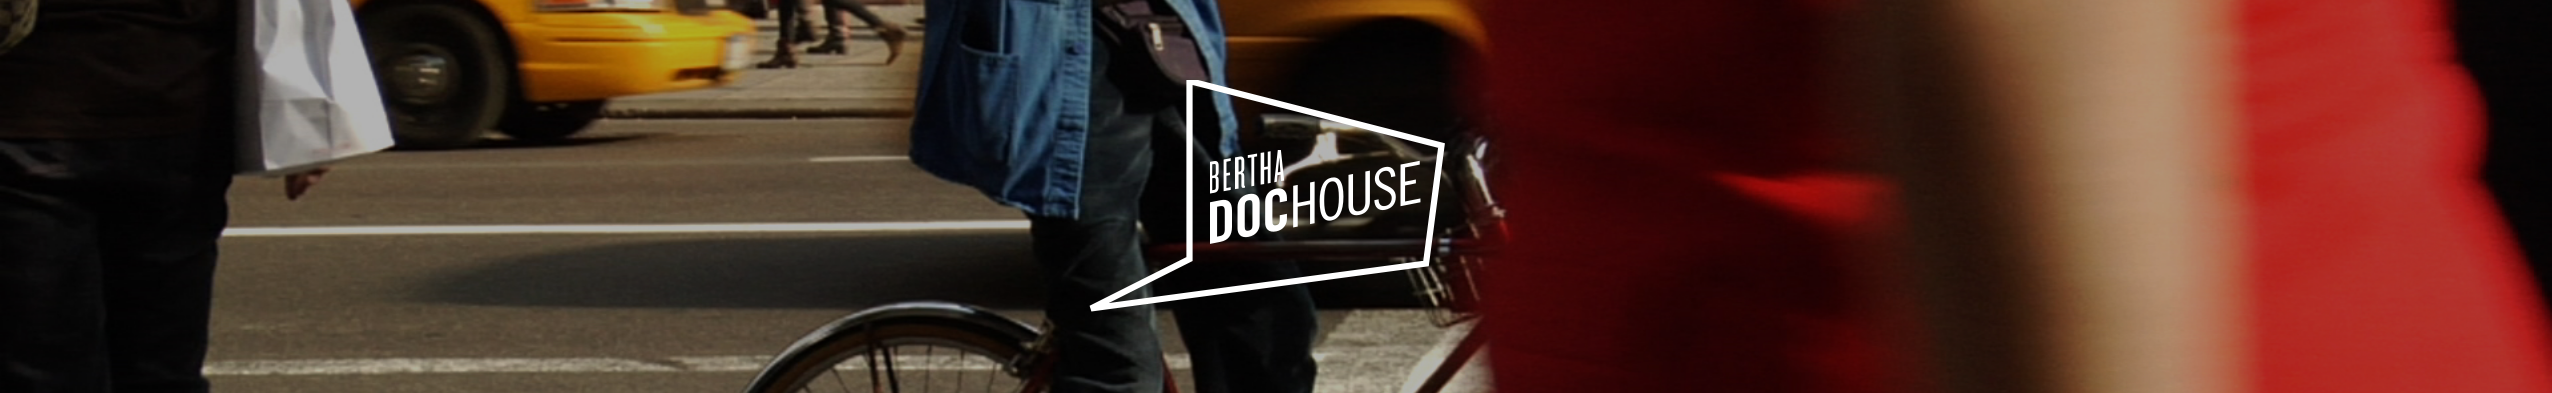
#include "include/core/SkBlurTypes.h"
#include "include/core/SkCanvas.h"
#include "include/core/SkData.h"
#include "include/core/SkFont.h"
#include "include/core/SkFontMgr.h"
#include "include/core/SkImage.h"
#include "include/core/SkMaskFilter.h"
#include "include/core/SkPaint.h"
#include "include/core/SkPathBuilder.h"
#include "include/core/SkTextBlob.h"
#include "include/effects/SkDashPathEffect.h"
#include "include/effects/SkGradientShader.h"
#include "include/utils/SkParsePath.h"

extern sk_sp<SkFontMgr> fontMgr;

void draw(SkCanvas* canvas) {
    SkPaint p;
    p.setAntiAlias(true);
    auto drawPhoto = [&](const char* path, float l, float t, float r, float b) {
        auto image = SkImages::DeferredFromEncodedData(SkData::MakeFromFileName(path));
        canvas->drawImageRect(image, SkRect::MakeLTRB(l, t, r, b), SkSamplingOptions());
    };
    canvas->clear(0xFFFFFFFF);
    drawPhoto("media/1.png", 0, 0, 2552, 393);
    canvas->save();
    canvas->clipRect(SkRect::MakeLTRB(1080, 80, 1474, 316));
    p.setStyle(SkPaint::kStroke_Style);
    p.setStrokeWidth(6.2f);
    p.setColor(0xFFFFFFFF);
    canvas->drawPath(SkPathBuilder().moveTo(1189.5f, 81).lineTo(1441.5f, 145.5f).lineTo(1426, 263.5f).lineTo(1091, 308.5f).lineTo(1189.5f, 259).close().detach(), p);
    canvas->restore();
    drawPhoto("media/2.png", 1210, 150, 1421, 244);
}
